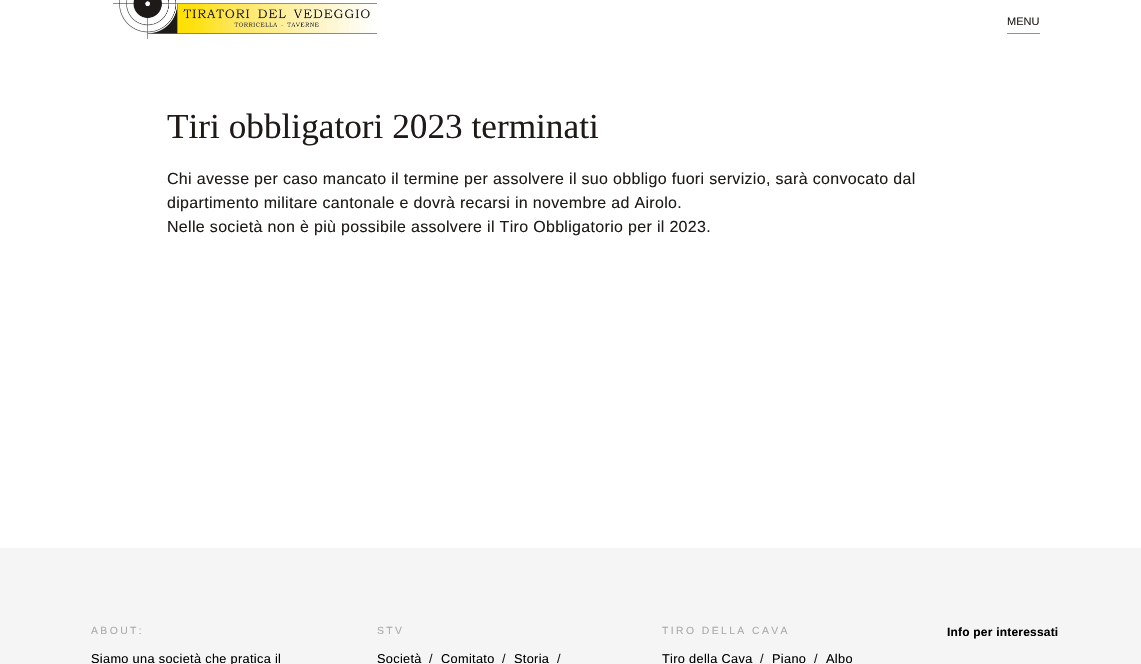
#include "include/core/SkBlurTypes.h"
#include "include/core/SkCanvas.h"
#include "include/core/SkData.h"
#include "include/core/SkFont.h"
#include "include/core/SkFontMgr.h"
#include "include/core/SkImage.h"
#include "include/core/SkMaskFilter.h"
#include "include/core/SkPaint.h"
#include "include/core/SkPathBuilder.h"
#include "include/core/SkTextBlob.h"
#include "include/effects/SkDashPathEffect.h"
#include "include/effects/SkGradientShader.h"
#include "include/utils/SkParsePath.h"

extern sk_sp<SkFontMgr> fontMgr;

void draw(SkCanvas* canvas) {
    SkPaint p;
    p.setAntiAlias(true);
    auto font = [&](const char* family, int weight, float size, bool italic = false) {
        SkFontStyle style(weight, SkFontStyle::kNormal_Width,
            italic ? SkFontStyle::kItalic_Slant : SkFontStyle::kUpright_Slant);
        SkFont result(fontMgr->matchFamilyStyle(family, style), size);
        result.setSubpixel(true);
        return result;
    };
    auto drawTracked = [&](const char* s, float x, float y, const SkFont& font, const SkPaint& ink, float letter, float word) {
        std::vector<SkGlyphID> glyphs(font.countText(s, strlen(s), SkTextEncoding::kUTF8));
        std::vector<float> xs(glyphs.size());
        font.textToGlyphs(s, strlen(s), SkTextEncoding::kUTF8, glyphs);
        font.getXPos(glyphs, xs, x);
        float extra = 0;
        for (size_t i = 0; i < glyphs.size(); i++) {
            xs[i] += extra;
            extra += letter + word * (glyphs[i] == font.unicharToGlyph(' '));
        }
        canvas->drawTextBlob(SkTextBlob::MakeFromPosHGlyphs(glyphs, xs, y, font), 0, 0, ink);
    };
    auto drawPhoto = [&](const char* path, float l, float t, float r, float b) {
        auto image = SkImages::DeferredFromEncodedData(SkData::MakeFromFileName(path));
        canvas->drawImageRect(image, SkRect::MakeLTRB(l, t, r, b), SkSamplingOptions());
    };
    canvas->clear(0xFFFFFFFF);
    drawPhoto("media/1.png", 113, 0, 377, 39);
    p.setColor(0xFF949192);
    canvas->drawRect(SkRect::MakeLTRB(1007, 33, 1040, 34), p);
    auto font1 = font("Liberation Sans", 400, 11);
    p.setColor(0xFF1F1A17);
    canvas->drawString("MENU", 1007, 25, font1, p);
    auto font2 = font("Liberation Serif", 400, 35.25f);
    canvas->drawString("Tiri obbligatori 2023 terminati", 167, 138, font2, p);
    auto font3 = font("Liberation Sans", 400, 16);
    {
        const struct { const char* s; float x, y; } items[] = {
            {"Chi avesse per caso mancato il termine per assolvere il suo obbligo fuori servizio, sarà convocato dal", 167, 184},
            {"dipartimento militare cantonale e dovrà recarsi in novembre ad Airolo.", 167, 208},
            {"Nelle società non è più possibile assolvere il Tiro Obbligatorio per il 2023.", 167, 232},
        };
        for (auto [s, x, y] : items) {
            drawTracked(s, x, y, font3, p, 0.32f, 0);
        }
    }
    p.setColor(0xFFF5F5F5);
    canvas->drawRect(SkRect::MakeLTRB(0, 548, 1141, 664), p);
    auto font4 = font("Liberation Sans", 400, 10.4f);
    p.setColor(0xFFAAAAAA);
    drawTracked("ABOUT:", 91, 634, font4, p, 2.4f, 0);
    auto font5 = font("Liberation Sans", 400, 12.75f);
    p.setColor(0xFF000000);
    drawTracked("Siamo una società che pratica il", 91, 663, font5, p, 0.32f, 0);
    p.setColor(0xFFAAAAAA);
    drawTracked("STV", 377, 634, font4, p, 2.4f, 0);
    p.setColor(0xFF000000);
    drawTracked("Società", 377, 663, font5, p, 0.32f, 0);
    p.setColor(0xFF1F1A17);
    drawTracked("/", 429, 663, font5, p, 0.32f, 0);
    p.setColor(0xFF000000);
    drawTracked("Comitato", 441, 663, font5, p, 0.32f, 0);
    p.setColor(0xFF1F1A17);
    drawTracked("/", 502, 663, font5, p, 0.32f, 0);
    p.setColor(0xFF000000);
    drawTracked("Storia", 514, 663, font5, p, 0.32f, 0);
    p.setColor(0xFF1F1A17);
    drawTracked("/", 557, 663, font5, p, 0.32f, 0);
    p.setColor(0xFFAAAAAA);
    drawTracked("TIRO DELLA CAVA", 662, 634, font4, p, 2.4f, 0);
    p.setColor(0xFF000000);
    drawTracked("Tiro della Cava", 662, 663, font5, p, 0.32f, 0);
    p.setColor(0xFF1F1A17);
    drawTracked("/", 760, 663, font5, p, 0.32f, 0);
    p.setColor(0xFF000000);
    drawTracked("Piano", 772, 663, font5, p, 0.32f, 0);
    p.setColor(0xFF1F1A17);
    drawTracked("/", 814, 663, font5, p, 0.32f, 0);
    p.setColor(0xFF000000);
    drawTracked("Albo", 826, 663, font5, p, 0.32f, 0);
    auto font6 = font("Liberation Sans", 700, 12);
    drawTracked("Info per interessati", 947, 636, font6, p, 0.2f, 0);
}
